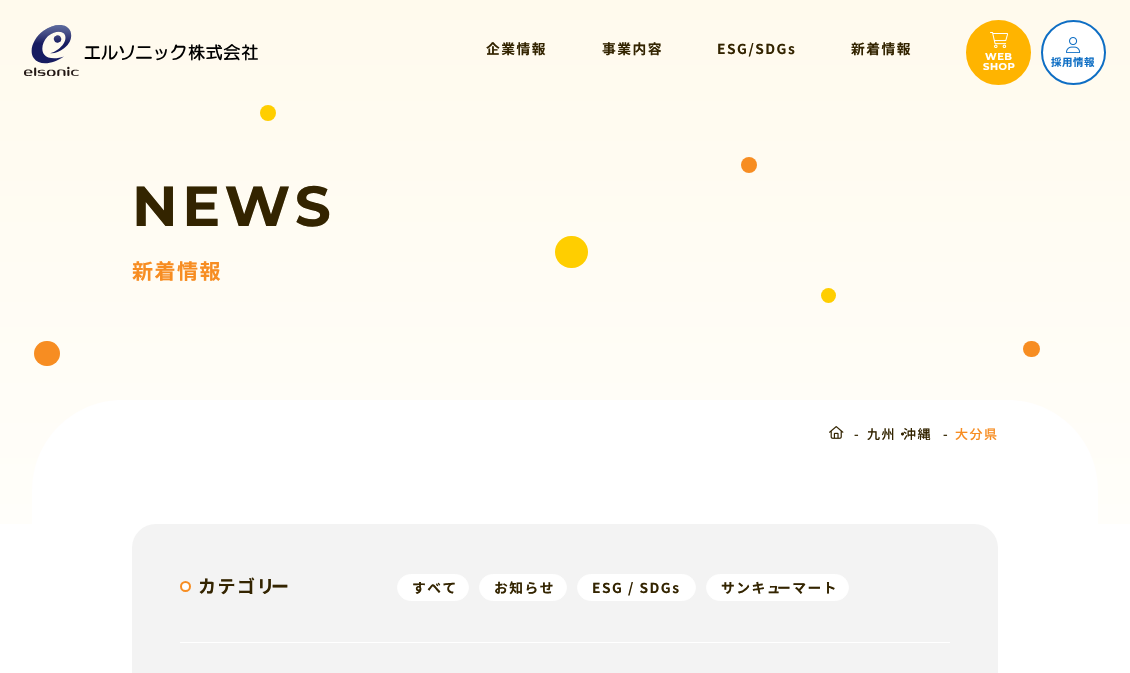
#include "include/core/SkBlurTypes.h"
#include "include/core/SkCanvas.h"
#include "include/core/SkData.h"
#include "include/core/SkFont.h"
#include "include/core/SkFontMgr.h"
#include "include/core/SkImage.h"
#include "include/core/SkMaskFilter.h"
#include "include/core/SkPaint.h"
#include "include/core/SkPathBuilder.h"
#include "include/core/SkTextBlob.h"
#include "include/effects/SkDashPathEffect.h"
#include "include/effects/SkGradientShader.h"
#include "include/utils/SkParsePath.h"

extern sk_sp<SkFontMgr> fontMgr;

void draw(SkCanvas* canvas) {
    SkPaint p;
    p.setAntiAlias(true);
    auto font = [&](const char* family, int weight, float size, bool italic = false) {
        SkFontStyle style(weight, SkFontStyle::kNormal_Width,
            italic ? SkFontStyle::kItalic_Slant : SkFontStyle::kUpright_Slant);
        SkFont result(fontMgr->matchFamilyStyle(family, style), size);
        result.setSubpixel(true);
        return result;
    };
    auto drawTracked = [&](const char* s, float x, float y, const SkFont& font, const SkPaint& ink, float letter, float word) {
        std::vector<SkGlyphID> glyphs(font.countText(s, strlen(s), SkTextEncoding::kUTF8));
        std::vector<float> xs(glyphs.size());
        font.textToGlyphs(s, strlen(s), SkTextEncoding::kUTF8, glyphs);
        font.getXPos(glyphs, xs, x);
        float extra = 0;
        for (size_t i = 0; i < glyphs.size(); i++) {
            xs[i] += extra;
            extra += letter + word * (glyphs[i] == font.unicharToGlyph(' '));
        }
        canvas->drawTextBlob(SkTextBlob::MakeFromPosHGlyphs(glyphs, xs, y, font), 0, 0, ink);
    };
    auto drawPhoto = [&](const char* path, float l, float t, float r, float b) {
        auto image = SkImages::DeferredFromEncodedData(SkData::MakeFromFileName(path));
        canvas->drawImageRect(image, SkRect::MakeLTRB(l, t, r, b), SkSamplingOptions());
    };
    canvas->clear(0xFFFFFFFF);
    {
        const SkColor colors[] = {0xFFFFFAED, 0xFFFFFEFA};
        const float stops[] = {0, 1};
        const SkPoint ends[] = {{565, 0}, {565, 524}};
        p.setShader(SkGradientShader::MakeLinear(ends, colors, stops, 2, SkTileMode::kClamp));
        p.setAlpha(255);
    }
    canvas->drawRect(SkRect::MakeLTRB(0, 0, 1130, 524), p);
    drawPhoto("media/1.png", 24, 25, 258, 76);
    auto font1 = font("Noto Sans JP", 700, 13.75f);
    p.setShader(nullptr);
    p.setColor(0xFF332400);
    {
        const struct { const char* s; float x, y; } items[] = {
            {"企業情報", 486, 54},
            {"事業内容", 602, 54},
            {"ESG/SDGs", 717, 54},
            {"新着情報", 851, 54},
        };
        for (auto [s, x, y] : items) {
            drawTracked(s, x, y, font1, p, 1.5f, 0);
        }
    }
    p.setColor(0xFFFFB400);
    canvas->drawCircle(998.5f, 52.5f, 31.5f, p);
    p.setStyle(SkPaint::kStroke_Style);
    p.setStrokeWidth(2);
    canvas->drawCircle(998.5f, 52.5f, 31.5f, p);
    drawPhoto("media/2.png", 990, 32, 1008, 48);
    auto font2 = font("Montserrat", 700, 10);
    p.setStyle(SkPaint::kFill_Style);
    p.setColor(0xFFFFFFFF);
    drawTracked("WEB", 985, 60, font2, p, 0.5f, 0);
    drawTracked("SHOP", 983, 70, font2, p, 0.5f, 0);
    canvas->drawCircle(1073.5f, 52.5f, 31.5f, p);
    p.setStyle(SkPaint::kStroke_Style);
    p.setColor(0xFF0E6EC4);
    canvas->drawCircle(1073.5f, 52.5f, 31.5f, p);
    drawPhoto("media/3.png", 1066, 37, 1081, 53);
    auto font3 = font("Noto Sans JP", 700, 10.5f);
    p.setStyle(SkPaint::kFill_Style);
    drawTracked("採用情報", 1051, 66, font3, p, 0.5f, 0);
    p.setColor(0xFFFFCE00);
    canvas->drawCircle(268, 113, 8, p);
    p.setColor(0xFFF78D22);
    canvas->drawCircle(749, 165, 8, p);
    auto font4 = font("Montserrat", 700, 56.5f);
    p.setColor(0xFF332400);
    drawTracked("NEWS", 132, 226, font4, p, 4.5f, 0);
    auto font5 = font("Noto Sans JP", 700, 21);
    p.setColor(0xFFF78D22);
    drawTracked("新着情報", 132, 279, font5, p, 1.5f, 0);
    p.setColor(0xFFFFFFFF);
    canvas->drawPath(SkPathBuilder().moveTo(122, 400).lineTo(1008, 400).cubicTo(1057.5f, 400, 1098, 440.5f, 1098, 490).lineTo(1098, 524).lineTo(32, 524).lineTo(32, 490).cubicTo(32, 440.5f, 72.5f, 400, 122, 400).close().detach(), p);
    drawPhoto("media/4.png", 829, 426, 844, 439);
    auto font6 = font("Noto Sans JP", 500, 13);
    p.setColor(0xFF332400);
    {
        const struct { const char* s; float x, y; } items[] = {
            {"-", 854, 439},
            {"九州・", 867, 439},
            {"沖縄", 903, 439},
            {"-", 943, 439},
        };
        for (auto [s, x, y] : items) {
            drawTracked(s, x, y, font6, p, 1.5f, 0);
        }
    }
    p.setColor(0xFFF78D22);
    drawTracked("大分県", 955, 439, font6, p, 1.5f, 0);
    p.setColor(0xFFFFCE00);
    canvas->drawRoundRect(SkRect::MakeLTRB(555, 236, 588, 268), 16, 16, p);
    canvas->drawCircle(828.5f, 295.5f, 7.5f, p);
    p.setColor(0xFFF78D22);
    canvas->drawRoundRect(SkRect::MakeLTRB(34, 341, 60, 366), 12.5f, 12.5f, p);
    canvas->drawRoundRect(SkRect::MakeLTRB(1023, 341, 1040, 357), 8, 8, p);
    p.setColor(0xFFF3F3F3);
    canvas->drawRoundRect(SkRect::MakeLTRB(132, 524, 998, 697), 24, 24, p);
    p.setColor(0xFFFFFFFF);
    canvas->drawCircle(185.5f, 586.5f, 4.5f, p);
    p.setStyle(SkPaint::kStroke_Style);
    p.setColor(0xFFF78D22);
    canvas->drawCircle(185.5f, 586.5f, 4.5f, p);
    auto font7 = font("Noto Sans JP", 700, 18);
    p.setStyle(SkPaint::kFill_Style);
    p.setColor(0xFF332400);
    drawTracked("カテゴリ", 198, 593, font7, p, 1.5f, 0);
    drawTracked("ー", 271, 593, font7, p, 1.5f, 0);
    p.setColor(0xFFFFFFFF);
    canvas->drawRoundRect(SkRect::MakeLTRB(397.5f, 574.5f, 468.5f, 600.5f), 13, 13, p);
    p.setStyle(SkPaint::kStroke_Style);
    p.setStrokeWidth(1);
    canvas->drawRoundRect(SkRect::MakeLTRB(397.5f, 574.5f, 468.5f, 600.5f), 13, 13, p);
    p.setStyle(SkPaint::kFill_Style);
    p.setColor(0xFF332400);
    drawTracked("すべて", 412, 593, font1, p, 1.5f, 0);
    p.setColor(0xFFFFFFFF);
    canvas->drawRoundRect(SkRect::MakeLTRB(479.5f, 574.5f, 566.5f, 600.5f), 13, 13, p);
    p.setStyle(SkPaint::kStroke_Style);
    canvas->drawRoundRect(SkRect::MakeLTRB(479.5f, 574.5f, 566.5f, 600.5f), 13, 13, p);
    p.setStyle(SkPaint::kFill_Style);
    p.setColor(0xFF332400);
    drawTracked("お知らせ", 494, 593, font1, p, 1.5f, 0);
    p.setColor(0xFFFFFFFF);
    canvas->drawRoundRect(SkRect::MakeLTRB(577.5f, 574.5f, 695.5f, 600.5f), 13, 13, p);
    p.setStyle(SkPaint::kStroke_Style);
    canvas->drawRoundRect(SkRect::MakeLTRB(577.5f, 574.5f, 695.5f, 600.5f), 13, 13, p);
    p.setStyle(SkPaint::kFill_Style);
    p.setColor(0xFF332400);
    drawTracked("ESG / SDGs", 592, 593, font1, p, 1.5f, 0);
    p.setColor(0xFFFFFFFF);
    canvas->drawRoundRect(SkRect::MakeLTRB(706.5f, 574.5f, 848.5f, 600.5f), 13, 13, p);
    p.setStyle(SkPaint::kStroke_Style);
    canvas->drawRoundRect(SkRect::MakeLTRB(706.5f, 574.5f, 848.5f, 600.5f), 13, 13, p);
    p.setStyle(SkPaint::kFill_Style);
    p.setColor(0xFF332400);
    drawTracked("サンキュ", 721, 593, font1, p, 1.5f, 0);
    drawTracked("ーマート", 777, 593, font1, p, 1.5f, 0);
    p.setColor(0xFFFFFFFF);
    canvas->drawRect(SkRect::MakeLTRB(180, 642, 950, 643), p);
}
